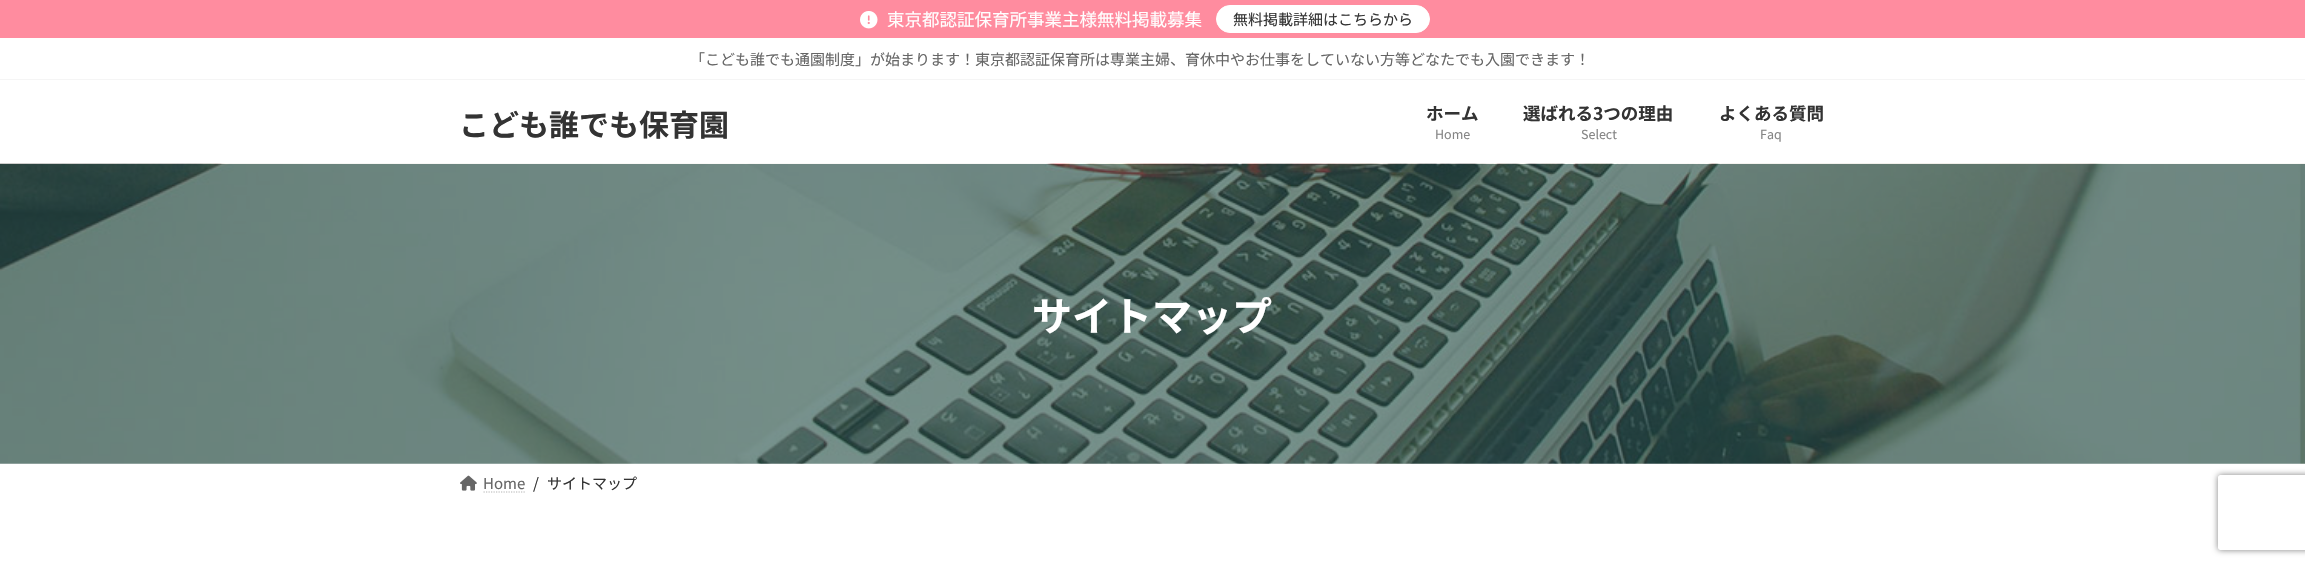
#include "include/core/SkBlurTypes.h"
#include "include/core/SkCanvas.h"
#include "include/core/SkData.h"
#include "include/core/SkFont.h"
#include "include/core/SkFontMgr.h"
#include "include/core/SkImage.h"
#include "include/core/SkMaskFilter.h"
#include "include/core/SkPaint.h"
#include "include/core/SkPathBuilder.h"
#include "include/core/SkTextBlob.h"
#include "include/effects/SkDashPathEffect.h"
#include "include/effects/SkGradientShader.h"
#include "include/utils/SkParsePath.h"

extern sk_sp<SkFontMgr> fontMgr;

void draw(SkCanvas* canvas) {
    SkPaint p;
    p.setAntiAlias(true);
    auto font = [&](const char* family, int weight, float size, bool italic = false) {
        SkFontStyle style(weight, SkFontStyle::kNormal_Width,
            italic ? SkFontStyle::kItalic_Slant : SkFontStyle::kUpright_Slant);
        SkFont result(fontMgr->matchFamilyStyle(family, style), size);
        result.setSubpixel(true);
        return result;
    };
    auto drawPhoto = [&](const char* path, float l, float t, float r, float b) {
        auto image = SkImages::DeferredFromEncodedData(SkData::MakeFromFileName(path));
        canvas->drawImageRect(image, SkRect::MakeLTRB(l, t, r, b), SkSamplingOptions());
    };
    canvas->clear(0xFFFFFFFF);
    p.setColor(0xFFFF8C9F);
    canvas->drawRect(SkRect::MakeLTRB(0, 0, 2305, 38), p);
    drawPhoto("media/1.png", 860, 11, 878, 29);
    auto font1 = font("Noto Sans JP", 400, 17.5f);
    p.setColor(0xFFFFFFFF);
    canvas->drawString("東京都認証保育所事業主様無料掲載募集", 887, 26, font1, p);
    canvas->drawRoundRect(SkRect::MakeLTRB(1216.5f, 5.5f, 1429.5f, 32.5f), 13.5f, 13.5f, p);
    p.setStyle(SkPaint::kStroke_Style);
    p.setStrokeWidth(1);
    canvas->drawRoundRect(SkRect::MakeLTRB(1216.5f, 5.5f, 1429.5f, 32.5f), 13.5f, 13.5f, p);
    auto font2 = font("Noto Sans JP", 400, 15);
    p.setStyle(SkPaint::kFill_Style);
    p.setColor(0xFF333333);
    canvas->drawString("無料掲載詳細はこちらから", 1233, 25, font2, p);
    p.setColor(0xFFF5F5F5);
    canvas->drawRect(SkRect::MakeLTRB(0, 79, 2305, 80), p);
    p.setColor(0xFF666666);
    canvas->drawString("「こども誰でも通園制度」が始まります！東京都認証保育所は専業主婦、育休中やお仕事をしていない方等どなたでも入園できます！", 690, 65, font2, p);
    auto font3 = font("Noto Sans JP", 700, 30);
    p.setColor(0xFF333333);
    canvas->drawString("こども誰でも保育園", 459, 136, font3, p);
    auto font4 = font("Noto Sans JP", 700, 17.5f);
    canvas->drawString("ホーム", 1426, 120, font4, p);
    auto font5 = font("Noto Sans JP", 400, 12.5f);
    p.setColor(0xFF858585);
    canvas->drawString("Home", 1435, 139, font5, p);
    p.setColor(0xFF333333);
    canvas->drawString("選ばれる3つの理由", 1523, 120, font4, p);
    p.setColor(0xFF858585);
    canvas->drawString("Select", 1581, 139, font5, p);
    p.setColor(0xFF333333);
    canvas->drawString("よくある質問", 1719, 120, font4, p);
    p.setColor(0xFF858585);
    canvas->drawString("Faq", 1760, 139, font5, p);
    drawPhoto("media/2.png", 0, 163, 2305, 464);
    auto font6 = font("Noto Sans JP", 700, 40);
    p.setColor(0xFFFFFFFF);
    canvas->drawString("サイトマップ", 1032, 331, font6, p);
    drawPhoto("media/3.png", 460, 475, 477, 491);
    p.setColor(0xFF666666);
    canvas->drawString("Home", 483, 489, font2, p);
    p.setStyle(SkPaint::kStroke_Style);
    p.setStrokeWidth(1.2f);
    p.setColor(0xFFB3B3B3);
    p.setPathEffect(SkDashPathEffect::Make({{1.25f, 1.25f}}, 0));
    canvas->drawPath(SkPathBuilder().moveTo(483.5f, 492).lineTo(525.5f, 492).detach(), p);
    p.setPathEffect(nullptr);
    p.setStyle(SkPaint::kFill_Style);
    p.setColor(0xFF333333);
    canvas->drawString("/", 533, 489, font2, p);
    canvas->drawString("サイトマップ", 547, 489, font2, p);
    canvas->save();
    canvas->clipPath(SkPathBuilder(SkPathFillType::kEvenOdd).moveTo(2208, 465).lineTo(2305, 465).lineTo(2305, 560).lineTo(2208, 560).close().moveTo(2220.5f, 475).lineTo(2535.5f, 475).cubicTo(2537, 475, 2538, 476, 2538, 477.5f).lineTo(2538, 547.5f).cubicTo(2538, 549, 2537, 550, 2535.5f, 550).lineTo(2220.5f, 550).cubicTo(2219, 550, 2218, 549, 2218, 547.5f).lineTo(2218, 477.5f).cubicTo(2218, 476, 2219, 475, 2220.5f, 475).close().detach(), true);
    p.setColor(0xFF808080);
    p.setMaskFilter(SkMaskFilter::MakeBlur(kNormal_SkBlurStyle, 3));
    canvas->drawRoundRect(SkRect::MakeLTRB(2218, 475, 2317, 550), 2.5f, 2.5f, p);
    p.setMaskFilter(nullptr);
    canvas->restore();
}
